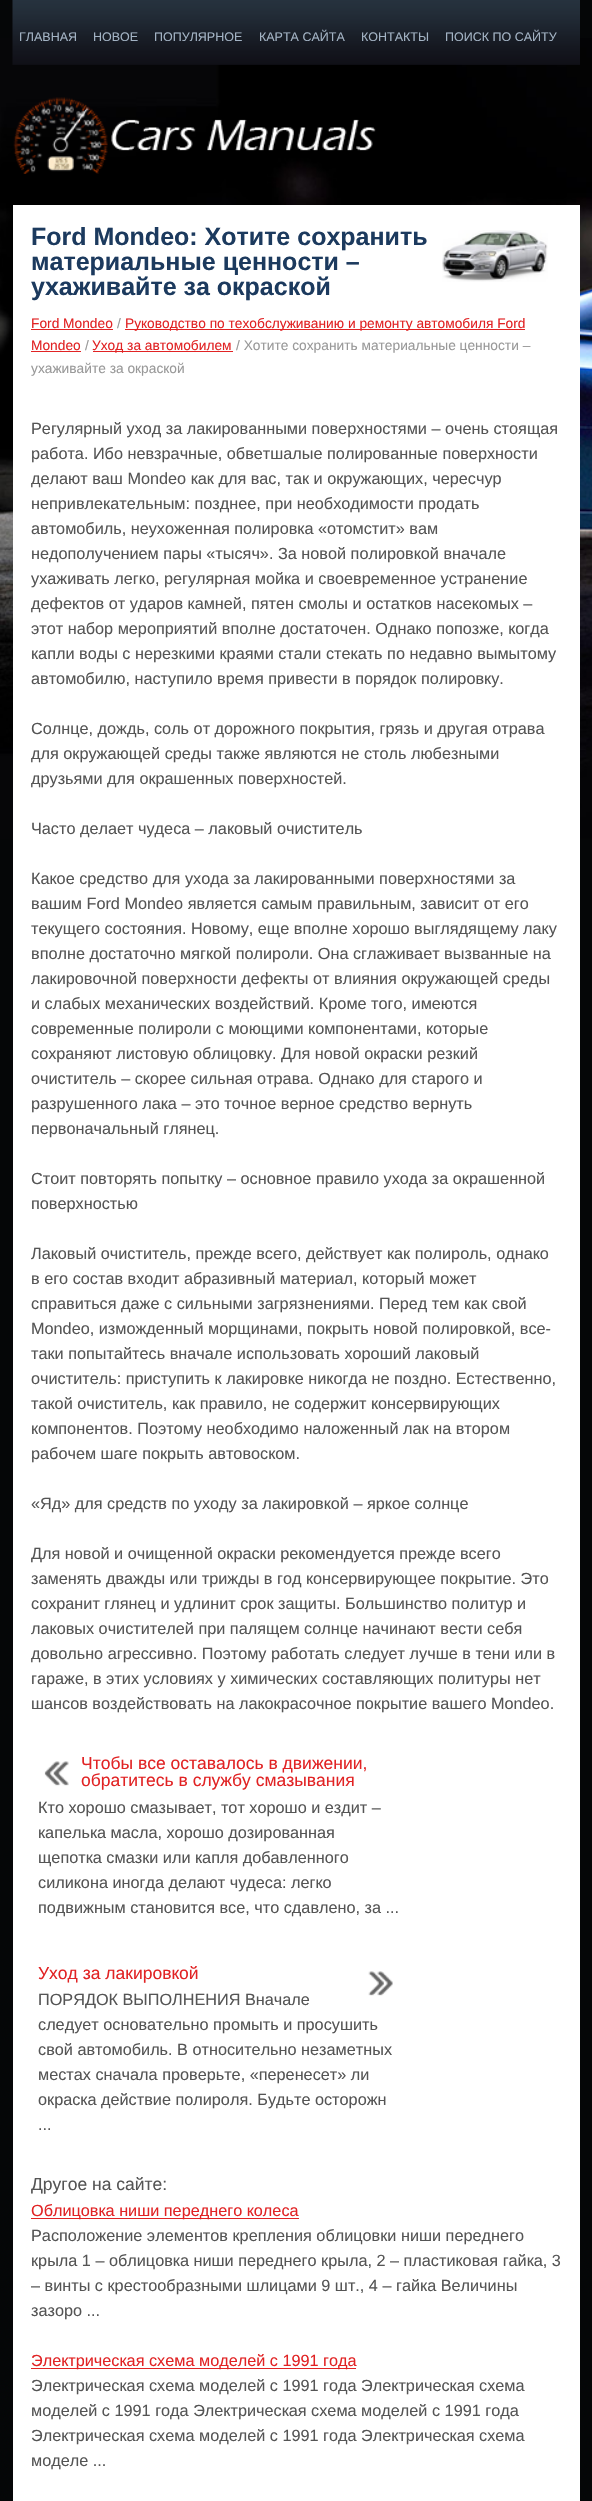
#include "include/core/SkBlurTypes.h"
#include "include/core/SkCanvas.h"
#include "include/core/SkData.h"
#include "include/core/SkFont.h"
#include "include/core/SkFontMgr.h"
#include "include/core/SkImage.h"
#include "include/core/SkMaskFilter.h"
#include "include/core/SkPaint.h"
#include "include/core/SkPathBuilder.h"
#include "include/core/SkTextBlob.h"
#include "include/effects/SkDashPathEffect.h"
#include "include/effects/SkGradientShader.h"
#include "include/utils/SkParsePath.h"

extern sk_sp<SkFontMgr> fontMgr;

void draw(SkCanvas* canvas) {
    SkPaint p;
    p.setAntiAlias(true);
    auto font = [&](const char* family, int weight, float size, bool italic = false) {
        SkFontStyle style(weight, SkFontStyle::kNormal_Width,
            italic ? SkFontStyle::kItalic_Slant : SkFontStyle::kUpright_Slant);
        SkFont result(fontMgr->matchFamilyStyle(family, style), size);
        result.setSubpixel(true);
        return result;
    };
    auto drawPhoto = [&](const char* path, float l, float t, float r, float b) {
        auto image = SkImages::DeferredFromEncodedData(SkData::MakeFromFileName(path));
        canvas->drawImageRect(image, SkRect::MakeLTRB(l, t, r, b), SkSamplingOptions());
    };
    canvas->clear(0xFF050607);
    drawPhoto("media/1.png", 0, 38, 592, 839);
    drawPhoto("media/2.png", 12, 0, 580, 65);
    auto font1 = font("Liberation Sans", 400, 12.5f);
    p.setColor(0xFFA3B3C4);
    {
        const struct { const char* s; float x, y; } items[] = {
            {"ГЛАВНАЯ", 19, 41},
            {"НОВОЕ", 93, 41},
            {"ПОПУЛЯРНОЕ", 154, 41},
            {"КАРТА САЙТА", 259, 41},
            {"КОНТАКТЫ", 361, 41},
            {"ПОИСК ПО САЙТУ", 445, 41},
        };
        for (auto [s, x, y] : items) {
            canvas->drawString(s, x, y, font1, p);
        }
    }
    drawPhoto("media/3.png", 13, 97, 376, 174);
    p.setColor(0xFFFFFFFF);
    canvas->drawRect(SkRect::MakeLTRB(13, 205, 580, 2501), p);
    auto font2 = font("Liberation Sans", 700, 25);
    p.setColor(0xFF1C3A5E);
    canvas->drawString("Ford Mondeo: Хотите сохранить", 31, 245, font2, p);
    drawPhoto("media/4.png", 442, 230, 548, 282);
    canvas->drawString("материальные ценности –", 31, 270, font2, p);
    canvas->drawString("ухаживайте за окраской", 31, 295, font2, p);
    auto font3 = font("Liberation Sans", 400, 13.75f);
    p.setColor(0xFFE12324);
    canvas->drawString("Ford Mondeo", 31, 328, font3, p);
    canvas->drawRect(SkRect::MakeLTRB(31, 329, 113, 330), p);
    p.setColor(0xFF999999);
    canvas->drawString("/", 117, 328, font3, p);
    p.setColor(0xFFE12324);
    canvas->drawRect(SkRect::MakeLTRB(125, 329, 525, 330), p);
    canvas->drawString("Руководство по техобслуживанию и ремонту автомобиля Ford", 125, 328, font3, p);
    canvas->drawString("Mondeo", 31, 350, font3, p);
    canvas->drawRect(SkRect::MakeLTRB(31, 351, 81, 352), p);
    p.setColor(0xFF999999);
    canvas->drawString("/", 85, 350, font3, p);
    p.setColor(0xFFE12324);
    canvas->drawRect(SkRect::MakeLTRB(93, 351, 233, 352), p);
    canvas->drawString("Уход за автомобилем", 92, 350, font3, p);
    p.setColor(0xFF999999);
    canvas->drawString("/ Хотите сохранить материальные ценности –", 236, 350, font3, p);
    canvas->drawString("ухаживайте за окраской", 31, 373, font3, p);
    auto font4 = font("Liberation Sans", 400, 16.25f);
    p.setColor(0xFF555555);
    {
        const struct { const char* s; float x, y; } items[] = {
            {"Регулярный уход за лакированными поверхностями – очень стоящая", 31, 434},
            {"работа. Ибо невзрачные, обветшалые полированные поверхности", 31, 459},
            {"делают ваш Mondeo как для вас, так и окружающих, чересчур", 31, 484},
            {"непривлекательным: позднее, при необходимости продать", 31, 509},
            {"автомобиль, неухоженная полировка «отомстит» вам", 31, 534},
            {"недополучением пары «тысяч». За новой полировкой вначале", 31, 559},
            {"ухаживать легко, регулярная мойка и своевременное устранение", 31, 584},
            {"дефектов от ударов камней, пятен смолы и остатков насекомых –", 31, 609},
            {"этот набор мероприятий вполне достаточен. Однако попозже, когда", 31, 634},
            {"капли воды с нерезкими краями стали стекать по недавно вымытому", 31, 659},
            {"автомобилю, наступило время привести в порядок полировку.", 31, 684},
            {"Солнце, дождь, соль от дорожного покрытия, грязь и другая отрава", 31, 734},
            {"для окружающей среды также являются не столь любезными", 31, 759},
            {"друзьями для окрашенных поверхностей.", 31, 784},
            {"Часто делает чудеса – лаковый очиститель", 31, 834},
            {"Какое средство для ухода за лакированными поверхностями за", 31, 884},
            {"вашим Ford Mondeo является самым правильным, зависит от его", 31, 909},
            {"текущего состояния. Новому, еще вполне хорошо выглядящему лаку", 31, 934},
            {"вполне достаточно мягкой полироли. Она сглаживает вызванные на", 31, 959},
            {"лакировочной поверхности дефекты от влияния окружающей среды", 31, 984},
            {"и слабых механических воздействий. Кроме того, имеются", 31, 1009},
            {"современные полироли с моющими компонентами, которые", 31, 1034},
            {"сохраняют листовую облицовку. Для новой окраски резкий", 31, 1059},
            {"очиститель – скорее сильная отрава. Однако для старого и", 31, 1084},
            {"разрушенного лака – это точное верное средство вернуть", 31, 1109},
            {"первоначальный глянец.", 31, 1134},
            {"Стоит повторять попытку – основное правило ухода за окрашенной", 31, 1184},
            {"поверхностью", 31, 1209},
            {"Лаковый очиститель, прежде всего, действует как полироль, однако", 31, 1259},
            {"в его состав входит абразивный материал, который может", 31, 1284},
            {"справиться даже с сильными загрязнениями. Перед тем как свой", 31, 1309},
            {"Mondeo, изможденный морщинами, покрыть новой полировкой, все-", 31, 1334},
            {"таки попытайтесь вначале использовать хороший лаковый", 31, 1359},
            {"очиститель: приступить к лакировке никогда не поздно. Естественно,", 31, 1384},
            {"такой очиститель, как правило, не содержит консервирующих", 31, 1409},
            {"компонентов. Поэтому необходимо наложенный лак на втором", 31, 1434},
            {"рабочем шаге покрыть автовоском.", 31, 1459},
            {"«Яд» для средств по уходу за лакировкой – яркое солнце", 31, 1509},
            {"Для новой и очищенной окраски рекомендуется прежде всего", 31, 1559},
            {"заменять дважды или трижды в год консервирующее покрытие. Это", 31, 1584},
            {"сохранит глянец и удлинит срок защиты. Большинство политур и", 31, 1609},
            {"лаковых очистителей при палящем солнце начинают вести себя", 31, 1634},
            {"довольно агрессивно. Поэтому работать следует лучше в тени или в", 31, 1659},
            {"гараже, в этих условиях у химических составляющих политуры нет", 31, 1684},
            {"шансов воздействовать на лакокрасочное покрытие вашего Mondeo.", 31, 1709},
        };
        for (auto [s, x, y] : items) {
            canvas->drawString(s, x, y, font4, p);
        }
    }
    drawPhoto("media/5.png", 44, 1761, 69, 1786);
    auto font5 = font("Liberation Sans", 400, 17.5f);
    p.setColor(0xFFE12324);
    canvas->drawString("Чтобы все оставалось в движении,", 81, 1769, font5, p);
    canvas->drawString("обратитесь в службу смазывания", 81, 1786, font5, p);
    p.setColor(0xFF555555);
    {
        const struct { const char* s; float x, y; } items[] = {
            {"Кто хорошо смазывает, тот хорошо и ездит –", 38, 1813},
            {"капелька масла, хорошо дозированная", 38, 1838},
            {"щепотка смазки или капля добавленного", 38, 1863},
            {"силикона иногда делают чудеса: легко", 38, 1888},
            {"подвижным становится все, что сдавлено, за ...", 38, 1913},
        };
        for (auto [s, x, y] : items) {
            canvas->drawString(s, x, y, font4, p);
        }
    }
    p.setColor(0xFFE12324);
    canvas->drawString("Уход за лакировкой", 38, 1979, font5, p);
    drawPhoto("media/6.png", 368, 1971, 393, 1996);
    p.setColor(0xFF555555);
    {
        const struct { const char* s; float x, y; } items[] = {
            {"ПОРЯДОК ВЫПОЛНЕНИЯ Вначале", 38, 2005},
            {"следует основательно промыть и просушить", 38, 2030},
            {"свой автомобиль. В относительно незаметных", 38, 2055},
            {"местах сначала проверьте, «перенесет» ли", 38, 2080},
            {"окраска действие полироля. Будьте осторожн", 38, 2105},
            {"...", 38, 2130},
        };
        for (auto [s, x, y] : items) {
            canvas->drawString(s, x, y, font4, p);
        }
    }
    canvas->drawString("Другое на сайте:", 31, 2190, font5, p);
    p.setColor(0xFFE12324);
    canvas->drawRect(SkRect::MakeLTRB(31, 2218, 299, 2219), p);
    canvas->drawString("Облицовка ниши переднего колеса", 31, 2216, font4, p);
    p.setColor(0xFF555555);
    {
        const struct { const char* s; float x, y; } items[] = {
            {"Расположение элементов крепления облицовки ниши переднего", 31, 2241},
            {"крыла 1 – облицовка ниши переднего крыла, 2 – пластиковая гайка, 3", 31, 2266},
            {"– винты с крестообразными шлицами 9 шт., 4 – гайка Величины", 31, 2291},
            {"зазоро ...", 31, 2316},
        };
        for (auto [s, x, y] : items) {
            canvas->drawString(s, x, y, font4, p);
        }
    }
    p.setColor(0xFFE12324);
    canvas->drawRect(SkRect::MakeLTRB(31, 2368, 356, 2369), p);
    canvas->drawString("Электрическая схема моделей с 1991 года", 31, 2366, font4, p);
    p.setColor(0xFF555555);
    {
        const struct { const char* s; float x, y; } items[] = {
            {"Электрическая схема моделей с 1991 года Электрическая схема", 31, 2391},
            {"моделей с 1991 года Электрическая схема моделей с 1991 года", 31, 2416},
            {"Электрическая схема моделей с 1991 года Электрическая схема", 31, 2441},
            {"моделе ...", 31, 2466},
        };
        for (auto [s, x, y] : items) {
            canvas->drawString(s, x, y, font4, p);
        }
    }
}
